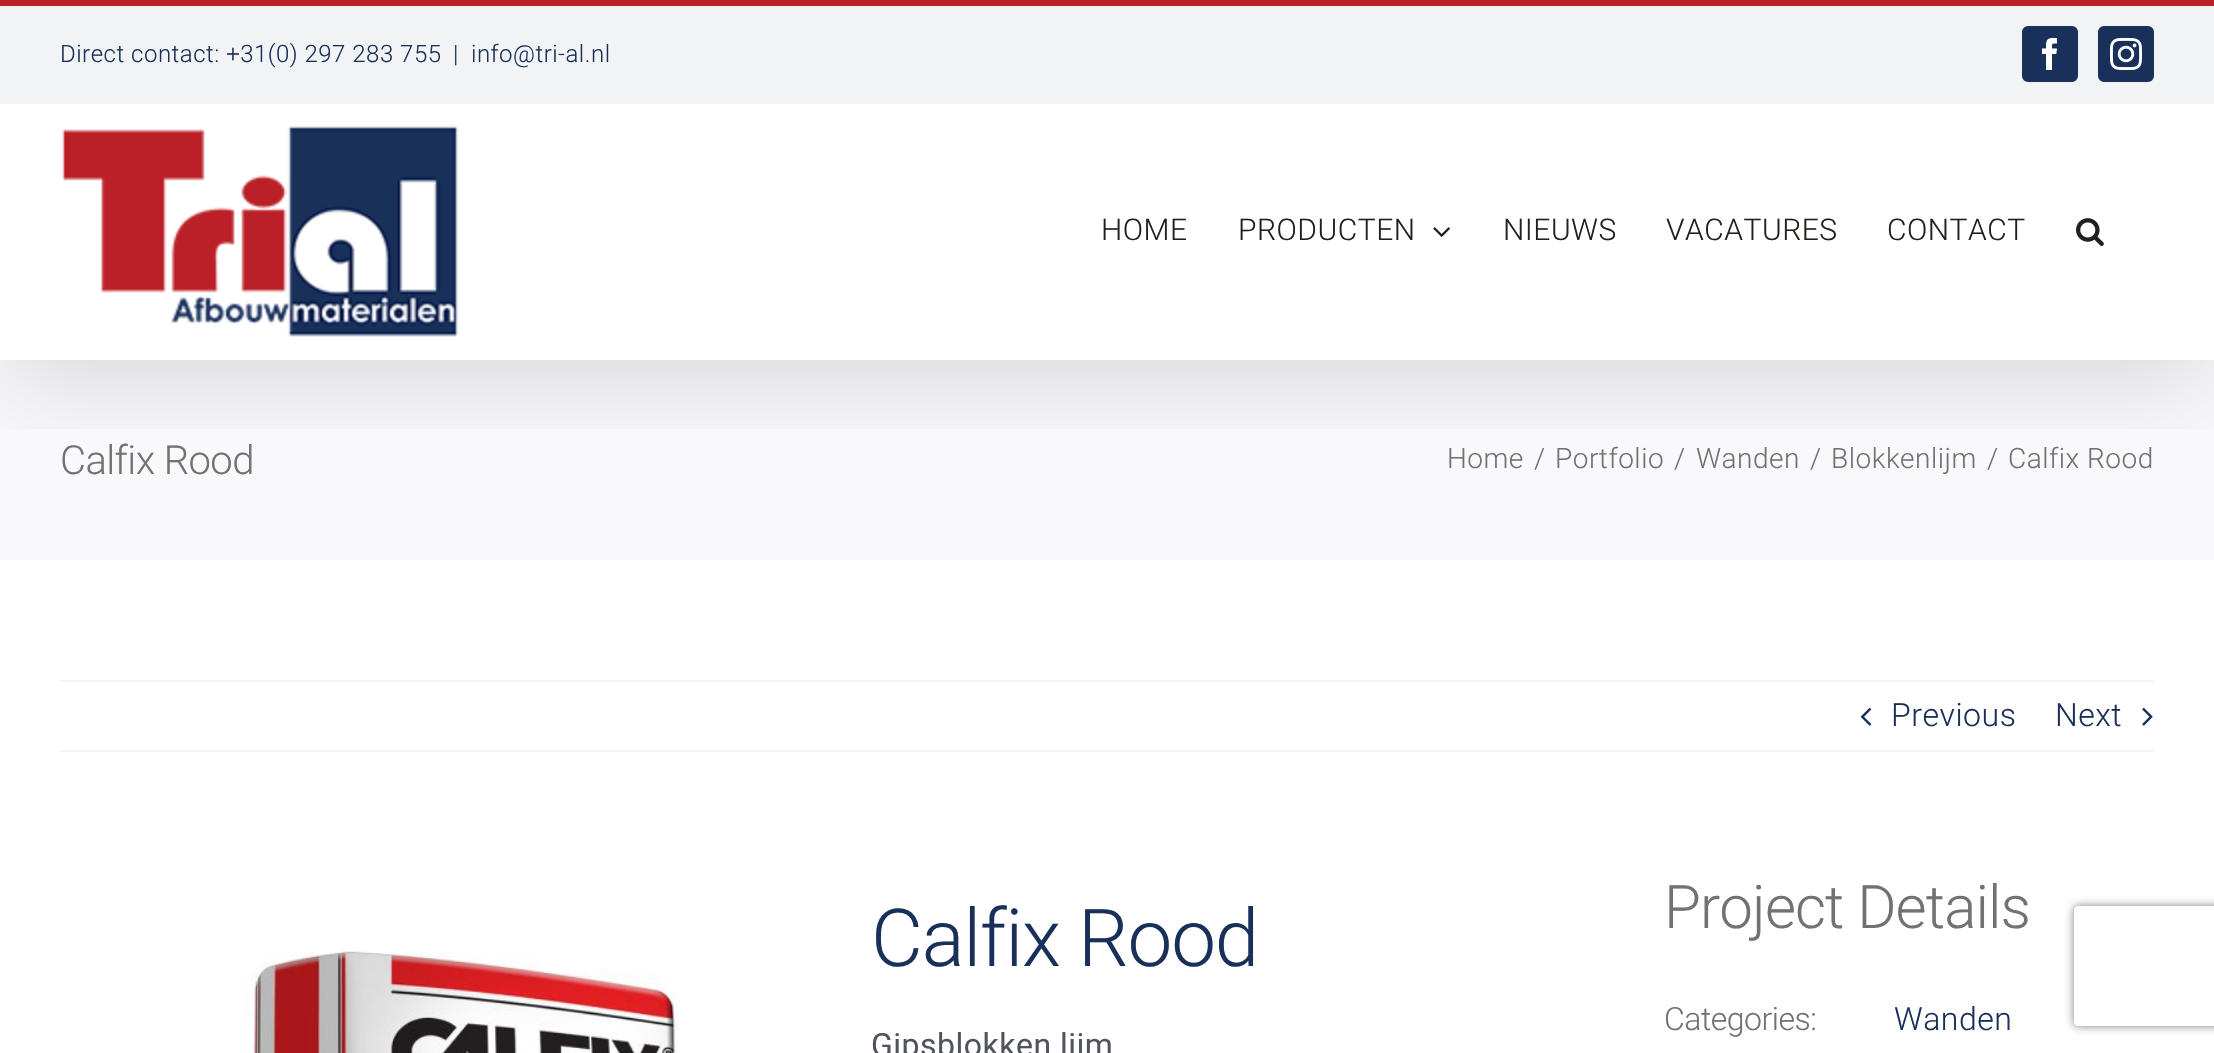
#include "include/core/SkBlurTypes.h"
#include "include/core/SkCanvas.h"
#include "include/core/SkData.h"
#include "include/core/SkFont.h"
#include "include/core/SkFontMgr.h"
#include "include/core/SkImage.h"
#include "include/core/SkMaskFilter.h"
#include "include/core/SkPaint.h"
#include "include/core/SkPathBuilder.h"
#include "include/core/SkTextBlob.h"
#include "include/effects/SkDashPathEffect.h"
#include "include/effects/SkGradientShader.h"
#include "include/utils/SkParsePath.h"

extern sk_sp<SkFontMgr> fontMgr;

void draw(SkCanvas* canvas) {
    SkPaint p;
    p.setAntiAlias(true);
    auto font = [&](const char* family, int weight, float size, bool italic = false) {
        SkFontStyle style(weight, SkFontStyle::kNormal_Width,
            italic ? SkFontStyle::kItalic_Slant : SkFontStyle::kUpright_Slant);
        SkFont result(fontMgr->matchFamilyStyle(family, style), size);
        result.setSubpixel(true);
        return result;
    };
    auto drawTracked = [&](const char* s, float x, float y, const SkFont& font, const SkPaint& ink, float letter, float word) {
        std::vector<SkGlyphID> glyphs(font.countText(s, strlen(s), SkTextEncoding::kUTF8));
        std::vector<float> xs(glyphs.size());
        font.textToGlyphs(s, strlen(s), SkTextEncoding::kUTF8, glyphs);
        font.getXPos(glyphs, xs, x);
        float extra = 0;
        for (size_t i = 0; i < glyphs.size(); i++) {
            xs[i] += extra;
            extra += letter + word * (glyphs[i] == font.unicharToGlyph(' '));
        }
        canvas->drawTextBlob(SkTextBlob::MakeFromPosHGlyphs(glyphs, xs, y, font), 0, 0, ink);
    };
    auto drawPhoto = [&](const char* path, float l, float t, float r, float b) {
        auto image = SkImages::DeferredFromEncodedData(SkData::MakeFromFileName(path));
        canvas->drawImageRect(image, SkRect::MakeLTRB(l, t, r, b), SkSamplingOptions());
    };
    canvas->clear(0xFFFFFFFF);
    p.setColor(0xFFF9F9FB);
    canvas->drawRect(SkRect::MakeLTRB(0, 360, 2214, 560), p);
    canvas->save();
    canvas->clipRect(SkRect::MakeLTRB(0, 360, 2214, 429));
    p.setColor(0x24000000);
    p.setMaskFilter(SkMaskFilter::MakeBlur(kNormal_SkBlurStyle, 50));
    canvas->drawRect(SkRect::MakeLTRB(4, 24, 2210, 376), p);
    p.setMaskFilter(nullptr);
    canvas->restore();
    p.setColor(0xFFF2F3F5);
    canvas->drawRect(SkRect::MakeLTRB(0, 6, 2214, 104), p);
    p.setColor(0xFFBB2026);
    canvas->drawRect(SkRect::MakeLTRB(0, 0, 2214, 6), p);
    auto font1 = font("Roboto", 300, 24);
    p.setColor(0xFF19305A);
    {
        const struct { const char* s; float x, y; } items[] = {
            {"Direct contact: +31(0) 297 283 755", 60, 62},
            {"|", 453, 62},
            {"info@tri-al.nl", 471, 62},
        };
        for (auto [s, x, y] : items) {
            drawTracked(s, x, y, font1, p, 0.5f, 0);
        }
    }
    canvas->drawRoundRect(SkRect::MakeLTRB(2023, 27, 2077, 81), 5, 5, p);
    p.setStyle(SkPaint::kStroke_Style);
    p.setStrokeWidth(2);
    canvas->drawRoundRect(SkRect::MakeLTRB(2023, 27, 2077, 81), 5, 5, p);
    drawPhoto("media/1.png", 2042, 38, 2057, 70);
    p.setStyle(SkPaint::kFill_Style);
    canvas->drawRoundRect(SkRect::MakeLTRB(2099, 27, 2153, 81), 5, 5, p);
    p.setStyle(SkPaint::kStroke_Style);
    canvas->drawRoundRect(SkRect::MakeLTRB(2099, 27, 2153, 81), 5, 5, p);
    drawPhoto("media/2.png", 2110, 38, 2142, 70);
    drawPhoto("media/3.png", 61, 125, 459, 337);
    auto font2 = font("Roboto", 300, 30);
    p.setStyle(SkPaint::kFill_Style);
    p.setColor(0xFF22201C);
    drawTracked("HOME", 1101, 240, font2, p, 0.5f, 0);
    drawTracked("PRODUCTEN", 1238, 240, font2, p, 0.5f, 0);
    drawPhoto("media/4.png", 1433, 227, 1450, 237);
    {
        const struct { const char* s; float x, y; } items[] = {
            {"NIEUWS", 1503, 240},
            {"VACATURES", 1666, 240},
            {"CONTACT", 1887, 240},
        };
        for (auto [s, x, y] : items) {
            drawTracked(s, x, y, font2, p, 0.5f, 0);
        }
    }
    drawPhoto("media/5.png", 2076, 218, 2104, 246);
    auto font3 = font("Roboto", 300, 40);
    p.setColor(0xFF727272);
    drawTracked("Calfix Rood", 60, 474, font3, p, -0.6f, 0);
    auto font4 = font("Roboto", 300, 28);
    {
        const struct { const char* s; float x, y; } items[] = {
            {"Home", 1447, 468},
            {"/", 1534, 468},
            {"Portfolio", 1555, 468},
            {"/", 1674, 468},
            {"Wanden", 1696, 468},
            {"/", 1810, 468},
            {"Blokkenlijm", 1831, 468},
            {"/", 1987, 468},
            {"Calfix Rood", 2008, 468},
        };
        for (auto [s, x, y] : items) {
            drawTracked(s, x, y, font4, p, 0.5f, 0);
        }
    }
    p.setColor(0xFFF2F3F5);
    canvas->drawRect(SkRect::MakeLTRB(60, 680, 2154, 682), p);
    canvas->drawRect(SkRect::MakeLTRB(60, 750, 2154, 752), p);
    drawPhoto("media/6.png", 1860, 707, 1872, 726);
    auto font5 = font("Roboto", 300, 32);
    p.setColor(0xFF19305A);
    drawTracked("Previous", 1891, 726, font5, p, 0.5f, 0);
    drawTracked("Next", 2055, 726, font5, p, 0.5f, 0);
    drawPhoto("media/7.png", 2142, 707, 2153, 726);
    drawPhoto("media/8.png", 244, 951, 679, 1053);
    auto font6 = font("Roboto", 300, 80);
    drawTracked("Calfix Rood", 871, 966, font6, p, -1.25f, 0);
    auto font7 = font("Roboto", 400, 32);
    p.setColor(0xFF51545E);
    drawTracked("Gipsblokken lijm", 871, 1056, font7, p, 0.5f, 0);
    auto font8 = font("Roboto", 300, 60);
    p.setColor(0xFF727272);
    drawTracked("Project Details", 1664, 928, font8, p, -0.9f, 0);
    drawTracked("Categories:", 1664, 1030, font5, p, -0.5f, 0);
    p.setColor(0xFF19305A);
    drawTracked("Wanden", 1894, 1030, font5, p, 0.5f, 0);
    canvas->save();
    canvas->clipPath(SkPathBuilder(SkPathFillType::kEvenOdd).moveTo(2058, 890).lineTo(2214, 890).lineTo(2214, 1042).lineTo(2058, 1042).close().moveTo(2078, 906).lineTo(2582, 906).cubicTo(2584, 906, 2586, 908, 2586, 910).lineTo(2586, 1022).cubicTo(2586, 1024, 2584, 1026, 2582, 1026).lineTo(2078, 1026).cubicTo(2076, 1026, 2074, 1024, 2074, 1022).lineTo(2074, 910).cubicTo(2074, 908, 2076, 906, 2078, 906).close().detach(), true);
    p.setColor(0xFF808080);
    p.setMaskFilter(SkMaskFilter::MakeBlur(kNormal_SkBlurStyle, 5));
    canvas->drawRoundRect(SkRect::MakeLTRB(2074, 906, 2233, 1026), 4, 4, p);
    p.setMaskFilter(nullptr);
    canvas->restore();
}
